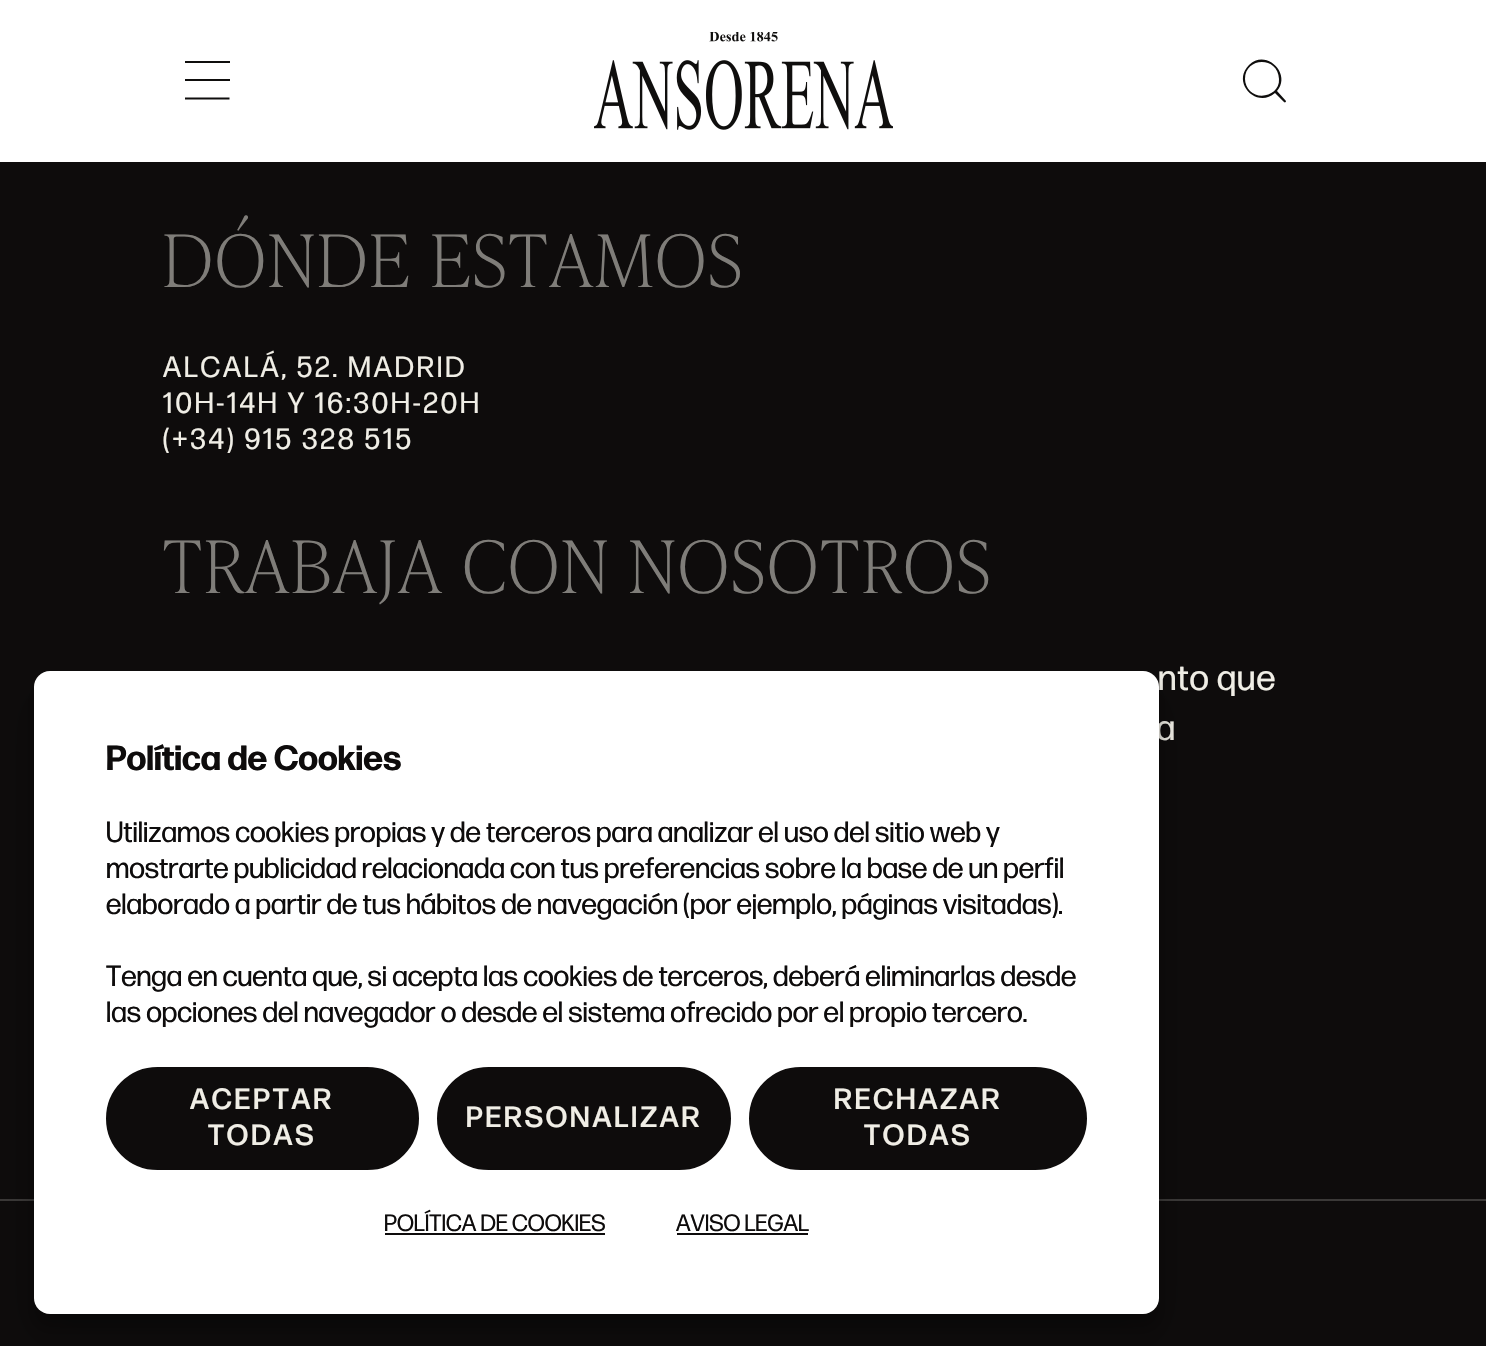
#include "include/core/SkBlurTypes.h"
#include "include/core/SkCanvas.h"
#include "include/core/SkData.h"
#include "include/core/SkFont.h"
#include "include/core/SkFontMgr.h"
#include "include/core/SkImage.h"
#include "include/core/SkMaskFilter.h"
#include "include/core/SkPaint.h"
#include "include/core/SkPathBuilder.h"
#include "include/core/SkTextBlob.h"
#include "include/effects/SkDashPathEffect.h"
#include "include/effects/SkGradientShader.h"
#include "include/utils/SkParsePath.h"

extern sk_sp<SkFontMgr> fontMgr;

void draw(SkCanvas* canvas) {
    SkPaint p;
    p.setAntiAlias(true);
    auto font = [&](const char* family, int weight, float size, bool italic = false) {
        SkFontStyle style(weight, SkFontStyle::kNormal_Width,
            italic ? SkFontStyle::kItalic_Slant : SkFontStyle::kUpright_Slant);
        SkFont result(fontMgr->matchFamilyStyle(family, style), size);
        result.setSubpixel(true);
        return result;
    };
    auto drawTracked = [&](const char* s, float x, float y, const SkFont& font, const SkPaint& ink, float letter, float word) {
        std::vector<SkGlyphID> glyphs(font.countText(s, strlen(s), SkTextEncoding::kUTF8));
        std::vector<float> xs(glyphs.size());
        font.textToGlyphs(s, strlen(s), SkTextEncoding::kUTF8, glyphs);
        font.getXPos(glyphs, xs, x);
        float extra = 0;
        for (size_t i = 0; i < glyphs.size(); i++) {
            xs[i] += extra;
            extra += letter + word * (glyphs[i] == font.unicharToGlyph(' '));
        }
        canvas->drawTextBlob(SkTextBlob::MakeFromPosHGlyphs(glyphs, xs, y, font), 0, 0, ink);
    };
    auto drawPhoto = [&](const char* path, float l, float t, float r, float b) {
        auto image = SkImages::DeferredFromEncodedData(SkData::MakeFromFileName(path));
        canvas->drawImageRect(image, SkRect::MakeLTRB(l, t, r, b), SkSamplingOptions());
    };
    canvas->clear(0xFF0E0C0C);
    {
        const struct { float l, t, r, b; SkColor color; } items[] = {
            {0, 0, 1486, 162, 0xFFFFFFFF},
            {185, 61, 230, 63, 0xFF0F0E0D},
            {185, 79, 230, 81, 0xFF0F0E0D},
        };
        for (auto [l, t, r, b, color] : items) {
            p.setColor(color);
            canvas->drawRect(SkRect::MakeLTRB(l, t, r, b), p);
        }
    }
    canvas->save();
    canvas->clipRect(SkRect::MakeLTRB(185, 61, 230, 101));
    p.setStyle(SkPaint::kStroke_Style);
    p.setStrokeWidth(2);
    canvas->drawPath(SkPathBuilder().moveTo(229.5f, 98.5f).lineTo(184.5f, 98.5f).detach(), p);
    canvas->restore();
    drawPhoto("media/1.png", 594, 32, 893, 130);
    p.setStyle(SkPaint::kFill_Style);
    canvas->drawPath(SkPathBuilder(SkPathFillType::kEvenOdd).moveTo(1245, 79).cubicTo(1245, 57, 1278, 56, 1279, 79).cubicTo(1280, 94, 1260, 101, 1250, 91).cubicTo(1247, 88, 1245, 83, 1245, 79).close().moveTo(1275, 93).cubicTo(1257, 109, 1231, 83, 1249, 65).cubicTo(1266, 48, 1292, 74, 1277, 91).lineTo(1286, 101).cubicTo(1286, 102, 1285, 103, 1284, 102).close().detach(), p);
    auto font1 = font("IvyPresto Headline", 100, 72);
    p.setColor(0xFF7F7D79);
    drawTracked("DÓNDE ESTAMOS", 163, 287, font1, p, 2.9f, 0);
    auto font2 = font("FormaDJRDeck", 400, 29.25f);
    p.setColor(0xFFF0EEE6);
    {
        const struct { const char* s; float x, y; } items[] = {
            {"ALCALÁ, 52. MADRID", 163, 377},
            {"10H-14H Y 16:30H-20H", 163, 413},
            {"(+34) 915 328 515", 163, 449},
        };
        for (auto [s, x, y] : items) {
            drawTracked(s, x, y, font2, p, 2.9f, 0);
        }
    }
    p.setColor(0xFF7F7D79);
    drawTracked("TRABAJA CON NOSOTROS", 163, 593, font1, p, 2.9f, 0);
    auto font3 = font("FormaDJRDeck", 400, 36);
    p.setColor(0xFFF0EEE6);
    drawTracked("nto que", 1158, 690, font3, p, 1, 0);
    drawTracked("a", 1156, 740, font3, p, 1, 0);
    p.setColor(0xFF3B3938);
    canvas->drawRect(SkRect::MakeLTRB(0, 1199, 1486, 1201), p);
    p.setColor(0x3B000000);
    p.setMaskFilter(SkMaskFilter::MakeBlur(kNormal_SkBlurStyle, 7));
    canvas->drawRoundRect(SkRect::MakeLTRB(34, 684, 1159, 1328), 16, 16, p);
    p.setMaskFilter(nullptr);
    p.setColor(0x30000000);
    p.setMaskFilter(SkMaskFilter::MakeBlur(kNormal_SkBlurStyle, 22.5f));
    canvas->drawRoundRect(SkRect::MakeLTRB(34, 693, 1159, 1337), 16, 16, p);
    p.setMaskFilter(nullptr);
    p.setColor(0xFFFFFFFF);
    canvas->drawRoundRect(SkRect::MakeLTRB(34, 671, 1159, 1314), 16, 16, p);
    auto font4 = font("FormaDJRDeck", 700, 35);
    p.setColor(0xFF0E0C0C);
    canvas->drawString("Política de Cookies", 106, 770, font4, p);
    {
        const struct { const char* s; float x, y; } items[] = {
            {"Utilizamos cookies propias y de terceros para analizar el uso del sitio web y", 106, 842},
            {"mostrarte publicidad relacionada con tus preferencias sobre la base de un perfil", 106, 878},
            {"elaborado a partir de tus hábitos de navegación (por ejemplo, páginas visitadas).", 106, 914},
            {"Tenga en cuenta que, si acepta las cookies de terceros, deberá eliminarlas desde", 106, 986},
            {"las opciones del navegador o desde el sistema ofrecido por el propio tercero.", 106, 1022},
        };
        for (auto [s, x, y] : items) {
            canvas->drawString(s, x, y, font2, p);
        }
    }
    canvas->drawRoundRect(SkRect::MakeLTRB(107, 1068, 418, 1169), 50.5f, 50.5f, p);
    p.setStyle(SkPaint::kStroke_Style);
    canvas->drawRoundRect(SkRect::MakeLTRB(107, 1068, 418, 1169), 50.5f, 50.5f, p);
    auto font5 = font("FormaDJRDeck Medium", 500, 29.25f);
    p.setStyle(SkPaint::kFill_Style);
    p.setColor(0xFFF0EEE6);
    drawTracked("ACEPTAR", 190, 1109, font5, p, 2.9f, 0);
    drawTracked("TODAS", 208, 1145, font5, p, 2.9f, 0);
    p.setColor(0xFF0E0C0C);
    canvas->drawRoundRect(SkRect::MakeLTRB(438, 1068, 730, 1169), 50.5f, 50.5f, p);
    p.setStyle(SkPaint::kStroke_Style);
    canvas->drawRoundRect(SkRect::MakeLTRB(438, 1068, 730, 1169), 50.5f, 50.5f, p);
    p.setStyle(SkPaint::kFill_Style);
    p.setColor(0xFFF0EEE6);
    drawTracked("PERSONALIZAR", 466, 1127, font5, p, 2.9f, 0);
    p.setColor(0xFF0E0C0C);
    canvas->drawRoundRect(SkRect::MakeLTRB(750, 1068, 1086, 1169), 50.5f, 50.5f, p);
    p.setStyle(SkPaint::kStroke_Style);
    canvas->drawRoundRect(SkRect::MakeLTRB(750, 1068, 1086, 1169), 50.5f, 50.5f, p);
    p.setStyle(SkPaint::kFill_Style);
    p.setColor(0xFFF0EEE6);
    drawTracked("RECHAZAR", 834, 1109, font5, p, 2.9f, 0);
    drawTracked("TODAS", 864, 1145, font5, p, 2.9f, 0);
    auto font6 = font("FormaDJRDeck", 400, 23.5f);
    p.setColor(0xFF0E0C0C);
    canvas->drawString("POLÍTICA DE COOKIES", 384, 1231, font6, p);
    canvas->drawRect(SkRect::MakeLTRB(385, 1233, 605, 1235), p);
    canvas->drawString("AVISO LEGAL", 676, 1231, font6, p);
    canvas->drawRect(SkRect::MakeLTRB(677, 1233, 808, 1235), p);
}
